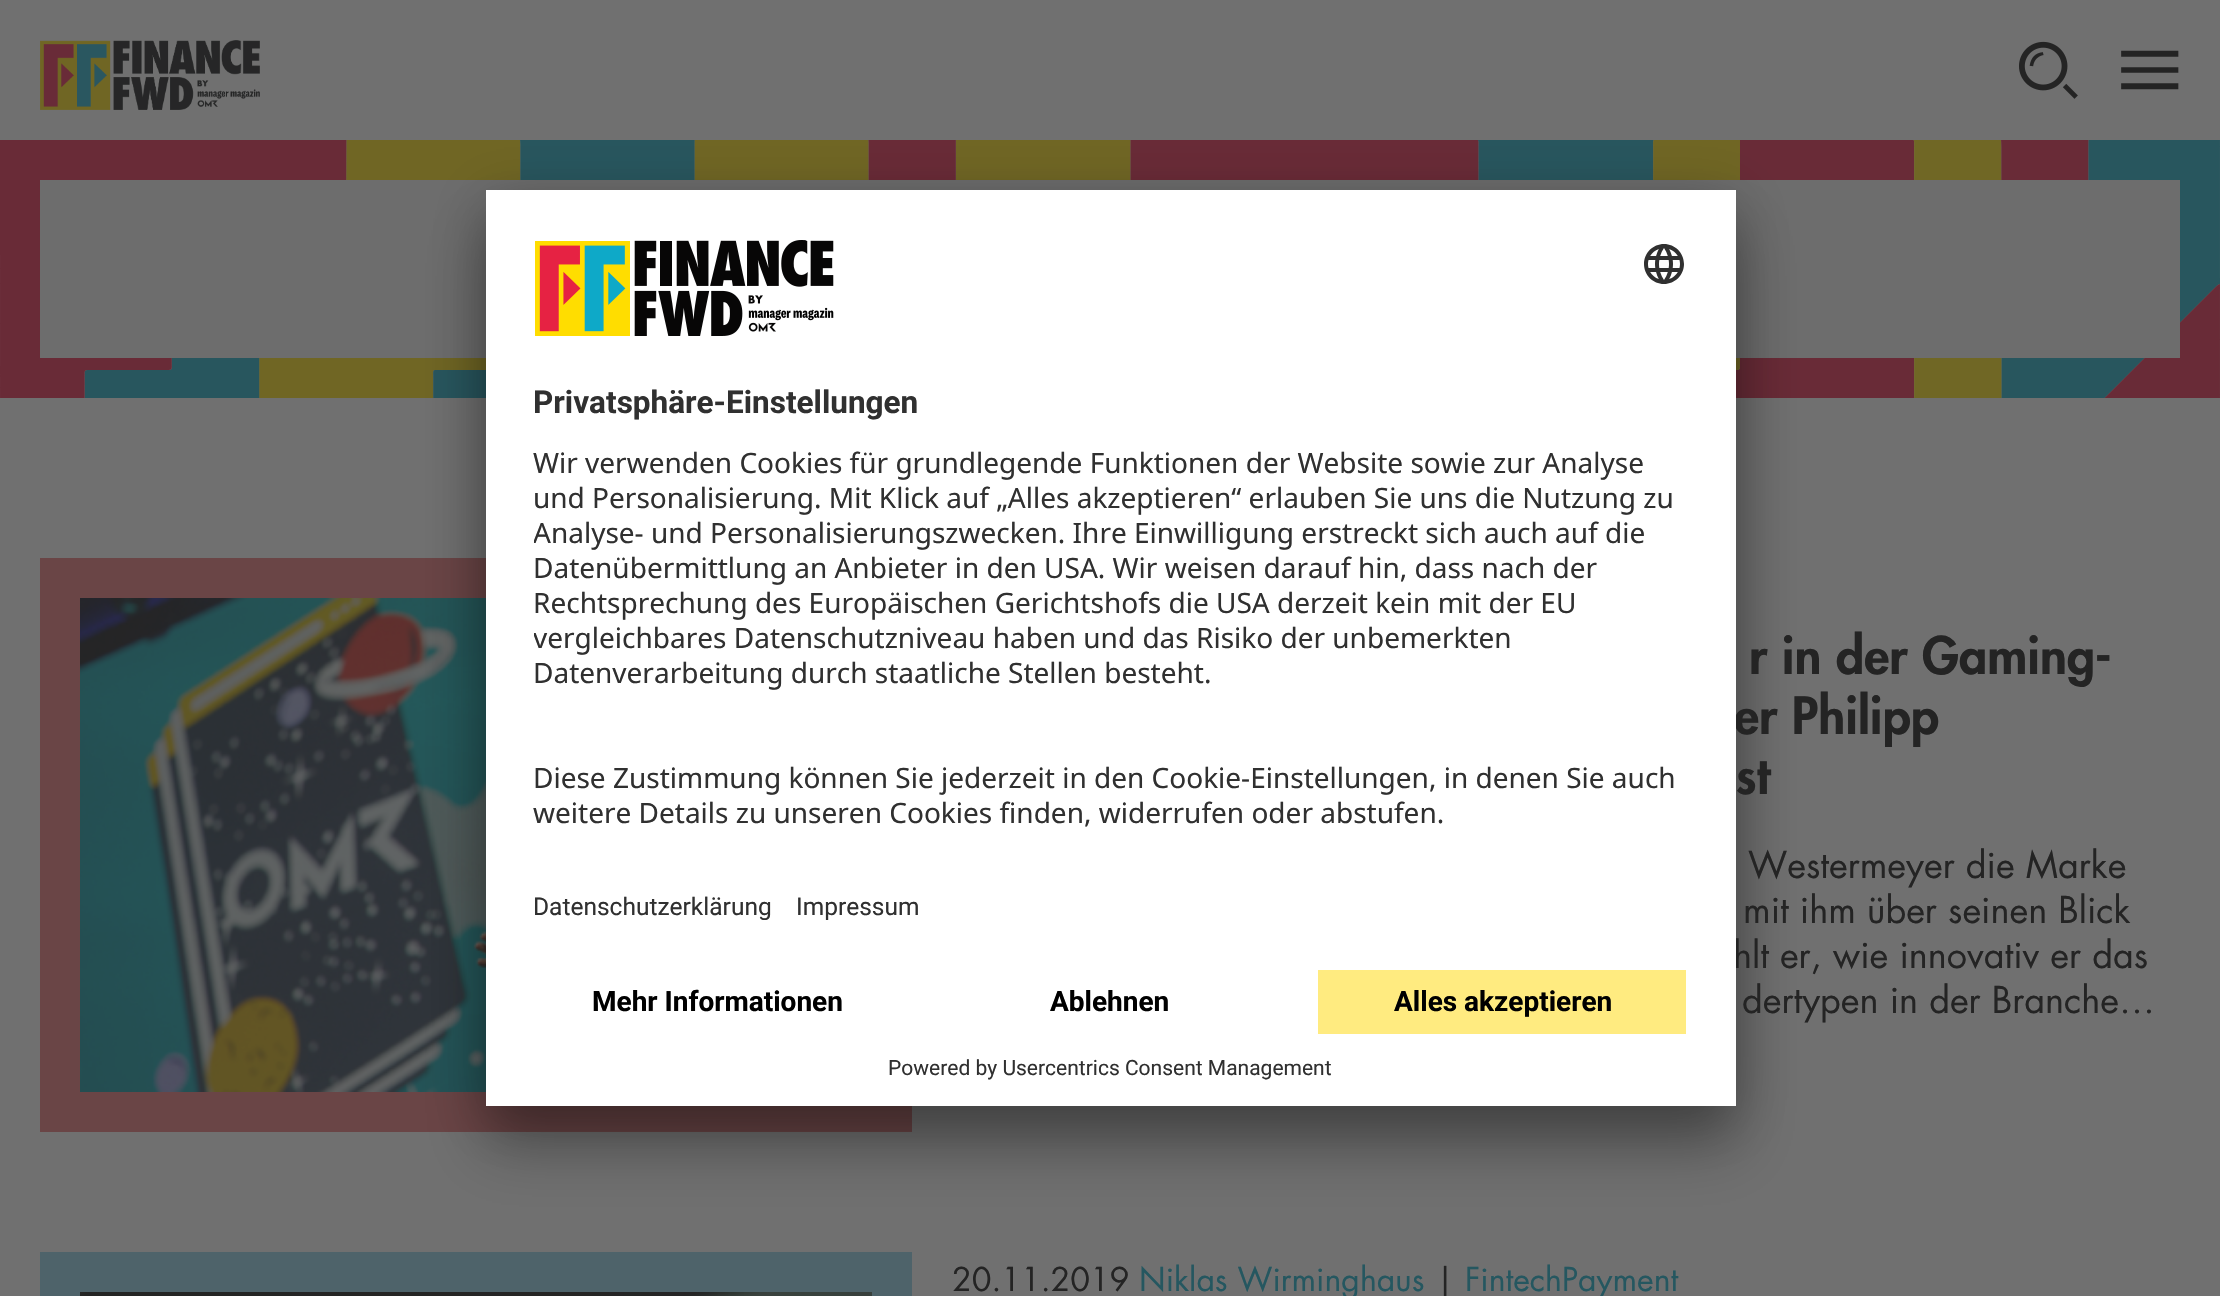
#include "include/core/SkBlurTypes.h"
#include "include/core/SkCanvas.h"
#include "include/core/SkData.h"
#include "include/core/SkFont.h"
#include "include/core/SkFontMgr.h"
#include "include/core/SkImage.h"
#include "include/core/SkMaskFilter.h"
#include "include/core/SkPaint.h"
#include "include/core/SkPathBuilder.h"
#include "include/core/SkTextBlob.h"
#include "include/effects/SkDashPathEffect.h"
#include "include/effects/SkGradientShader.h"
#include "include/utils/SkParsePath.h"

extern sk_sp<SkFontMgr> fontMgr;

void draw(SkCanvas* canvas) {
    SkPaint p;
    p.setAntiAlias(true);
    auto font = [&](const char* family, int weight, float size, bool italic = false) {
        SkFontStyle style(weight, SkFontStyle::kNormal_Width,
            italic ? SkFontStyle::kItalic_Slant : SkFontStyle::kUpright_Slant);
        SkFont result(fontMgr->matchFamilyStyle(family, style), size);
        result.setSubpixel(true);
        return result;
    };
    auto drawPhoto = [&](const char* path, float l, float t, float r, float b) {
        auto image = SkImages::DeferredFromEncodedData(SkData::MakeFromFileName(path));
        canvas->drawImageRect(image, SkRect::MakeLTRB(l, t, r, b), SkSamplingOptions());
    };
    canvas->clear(0xFF707070);
    drawPhoto("media/1.png", 40, 40, 260, 110);
    drawPhoto("media/2.png", 2019, 41, 2078, 99);
    p.setStyle(SkPaint::kStroke_Style);
    p.setStrokeWidth(3.7f);
    p.setColor(0xFF242424);
    canvas->drawPath(SkPathBuilder().moveTo(2123, 52.5f).lineTo(2176.5f, 52.5f).lineTo(2176.5f, 55).lineTo(2123, 55).close().moveTo(2123, 69).lineTo(2176.5f, 69).lineTo(2176.5f, 71).lineTo(2123, 71).close().moveTo(2123, 87.5f).lineTo(2123, 85).lineTo(2176.5f, 85).lineTo(2176.5f, 87.5f).close().detach(), p);
    drawPhoto("media/5.png", 0, 140, 2220, 398);
    p.setStyle(SkPaint::kFill_Style);
    p.setColor(0xFF6D6D6D);
    canvas->drawRect(SkRect::MakeLTRB(40, 180, 2180, 358), p);
    p.setColor(0xFF6A4546);
    canvas->drawRect(SkRect::MakeLTRB(40, 558, 912, 1132), p);
    drawPhoto("media/6.png", 80, 598, 486, 1092);
    p.setColor(0x4D000000);
    p.setMaskFilter(SkMaskFilter::MakeBlur(kNormal_SkBlurStyle, 28));
    canvas->drawRect(SkRect::MakeLTRB(486, 230, 1736, 1146), p);
    p.setMaskFilter(nullptr);
    p.setColor(0x38000000);
    p.setMaskFilter(SkMaskFilter::MakeBlur(kNormal_SkBlurStyle, 26));
    canvas->drawRect(SkRect::MakeLTRB(486, 200, 1736, 1116), p);
    p.setMaskFilter(nullptr);
    auto font1 = font("Futura", 900, 50);
    p.setColor(0xFF242424);
    canvas->drawString("er Philipp", 1734, 734, font1, p);
    auto font2 = font("Futura", 400, 36);
    canvas->drawString("hlt er, wie innovativ er das", 1733, 968, font2, p);
    p.setColor(0xFFFFFFFF);
    canvas->drawRect(SkRect::MakeLTRB(486, 190, 1736, 1106), p);
    drawPhoto("media/3.png", 535, 240, 834, 336);
    drawPhoto("media/4.png", 1644, 244, 1684, 284);
    auto font3 = font("Roboto", 700, 31.5f);
    p.setColor(0xFF303030);
    canvas->drawString("Privatsphäre-Einstellungen", 533, 413, font3, p);
    auto font4 = font("Noto Sans", 400, 28);
    canvas->drawString("Wir verwenden Cookies für grundlegende Funktionen der Website sowie zur Analyse", 533, 473, font4, p);
    canvas->drawString("und Personalisierung. Mit Klick auf „Alles akzeptieren“ erlauben Sie uns die Nutzung zu", 533, 508, font4, p);
    canvas->save();
    canvas->clipRect(SkRect::MakeLTRB(534, 436, 1688, 838));
    canvas->drawString("Analyse- und Personalisierungszwecken. Ihre Einwilligung erstreckt sich auch auf die", 533, 543, font4, p);
    canvas->restore();
    canvas->drawString("Datenübermittlung an Anbieter in den USA. Wir weisen darauf hin, dass nach der", 533, 578, font4, p);
    canvas->drawString("Rechtsprechung des Europäischen Gerichtshofs die USA derzeit kein mit der EU", 533, 613, font4, p);
    canvas->save();
    canvas->clipRect(SkRect::MakeLTRB(534, 436, 1688, 838));
    canvas->drawString("vergleichbares Datenschutzniveau haben und das Risiko der unbemerkten", 533, 648, font4, p);
    canvas->restore();
    {
        const struct { const char* s; float x, y; } items[] = {
            {"Datenverarbeitung durch staatliche Stellen besteht.", 533, 683},
            {"Diese Zustimmung können Sie jederzeit in den Cookie-Einstellungen, in denen Sie auch", 533, 788},
            {"weitere Details zu unseren Cookies finden, widerrufen oder abstufen.", 533, 823},
        };
        for (auto [s, x, y] : items) {
            canvas->drawString(s, x, y, font4, p);
        }
    }
    auto font5 = font("Roboto", 400, 24.5f);
    canvas->drawString("Datenschutzerklärung", 533, 915, font5, p);
    canvas->drawString("Impressum", 796, 915, font5, p);
    auto font6 = font("Roboto", 700, 28);
    p.setColor(0xFF000000);
    canvas->drawString("Mehr Informationen", 592, 1011, font6, p);
    canvas->drawString("Ablehnen", 1050, 1011, font6, p);
    p.setColor(0xFFFFEB80);
    canvas->drawRect(SkRect::MakeLTRB(1318, 970, 1686, 1034), p);
    p.setColor(0xFF000000);
    canvas->drawString("Alles akzeptieren", 1394, 1011, font6, p);
    auto font7 = font("Roboto", 400, 21);
    p.setColor(0xFF303030);
    canvas->drawString("Powered by Usercentrics Consent Management", 888, 1075, font7, p);
    p.setColor(0xFF242424);
    canvas->drawString("r in der Gaming-", 1749, 674, font1, p);
    canvas->drawString("st", 1736, 794, font1, p);
    {
        const struct { const char* s; float x, y; } items[] = {
            {"Westermeyer die Marke", 1748, 878},
            {"mit ihm über seinen Blick", 1743, 923},
            {"dertypen in der Branche…", 1742, 1013},
        };
        for (auto [s, x, y] : items) {
            canvas->drawString(s, x, y, font2, p);
        }
    }
    p.setColor(0xFF4E636A);
    canvas->drawRect(SkRect::MakeLTRB(40, 1252, 912, 1296), p);
    drawPhoto("media/7.png", 80, 1292, 872, 1296);
    auto font8 = font("Futura", 400, 32);
    p.setColor(0xFF242424);
    canvas->drawString("20.11.2019", 952, 1291, font8, p);
    p.setColor(0xFF255760);
    canvas->drawString("Niklas Wirminghaus", 1139, 1291, font8, p);
    p.setColor(0xFF242424);
    canvas->drawString("|", 1436, 1291, font8, p);
    p.setColor(0xFF255760);
    canvas->drawString("FintechPayment", 1465, 1291, font8, p);
}
